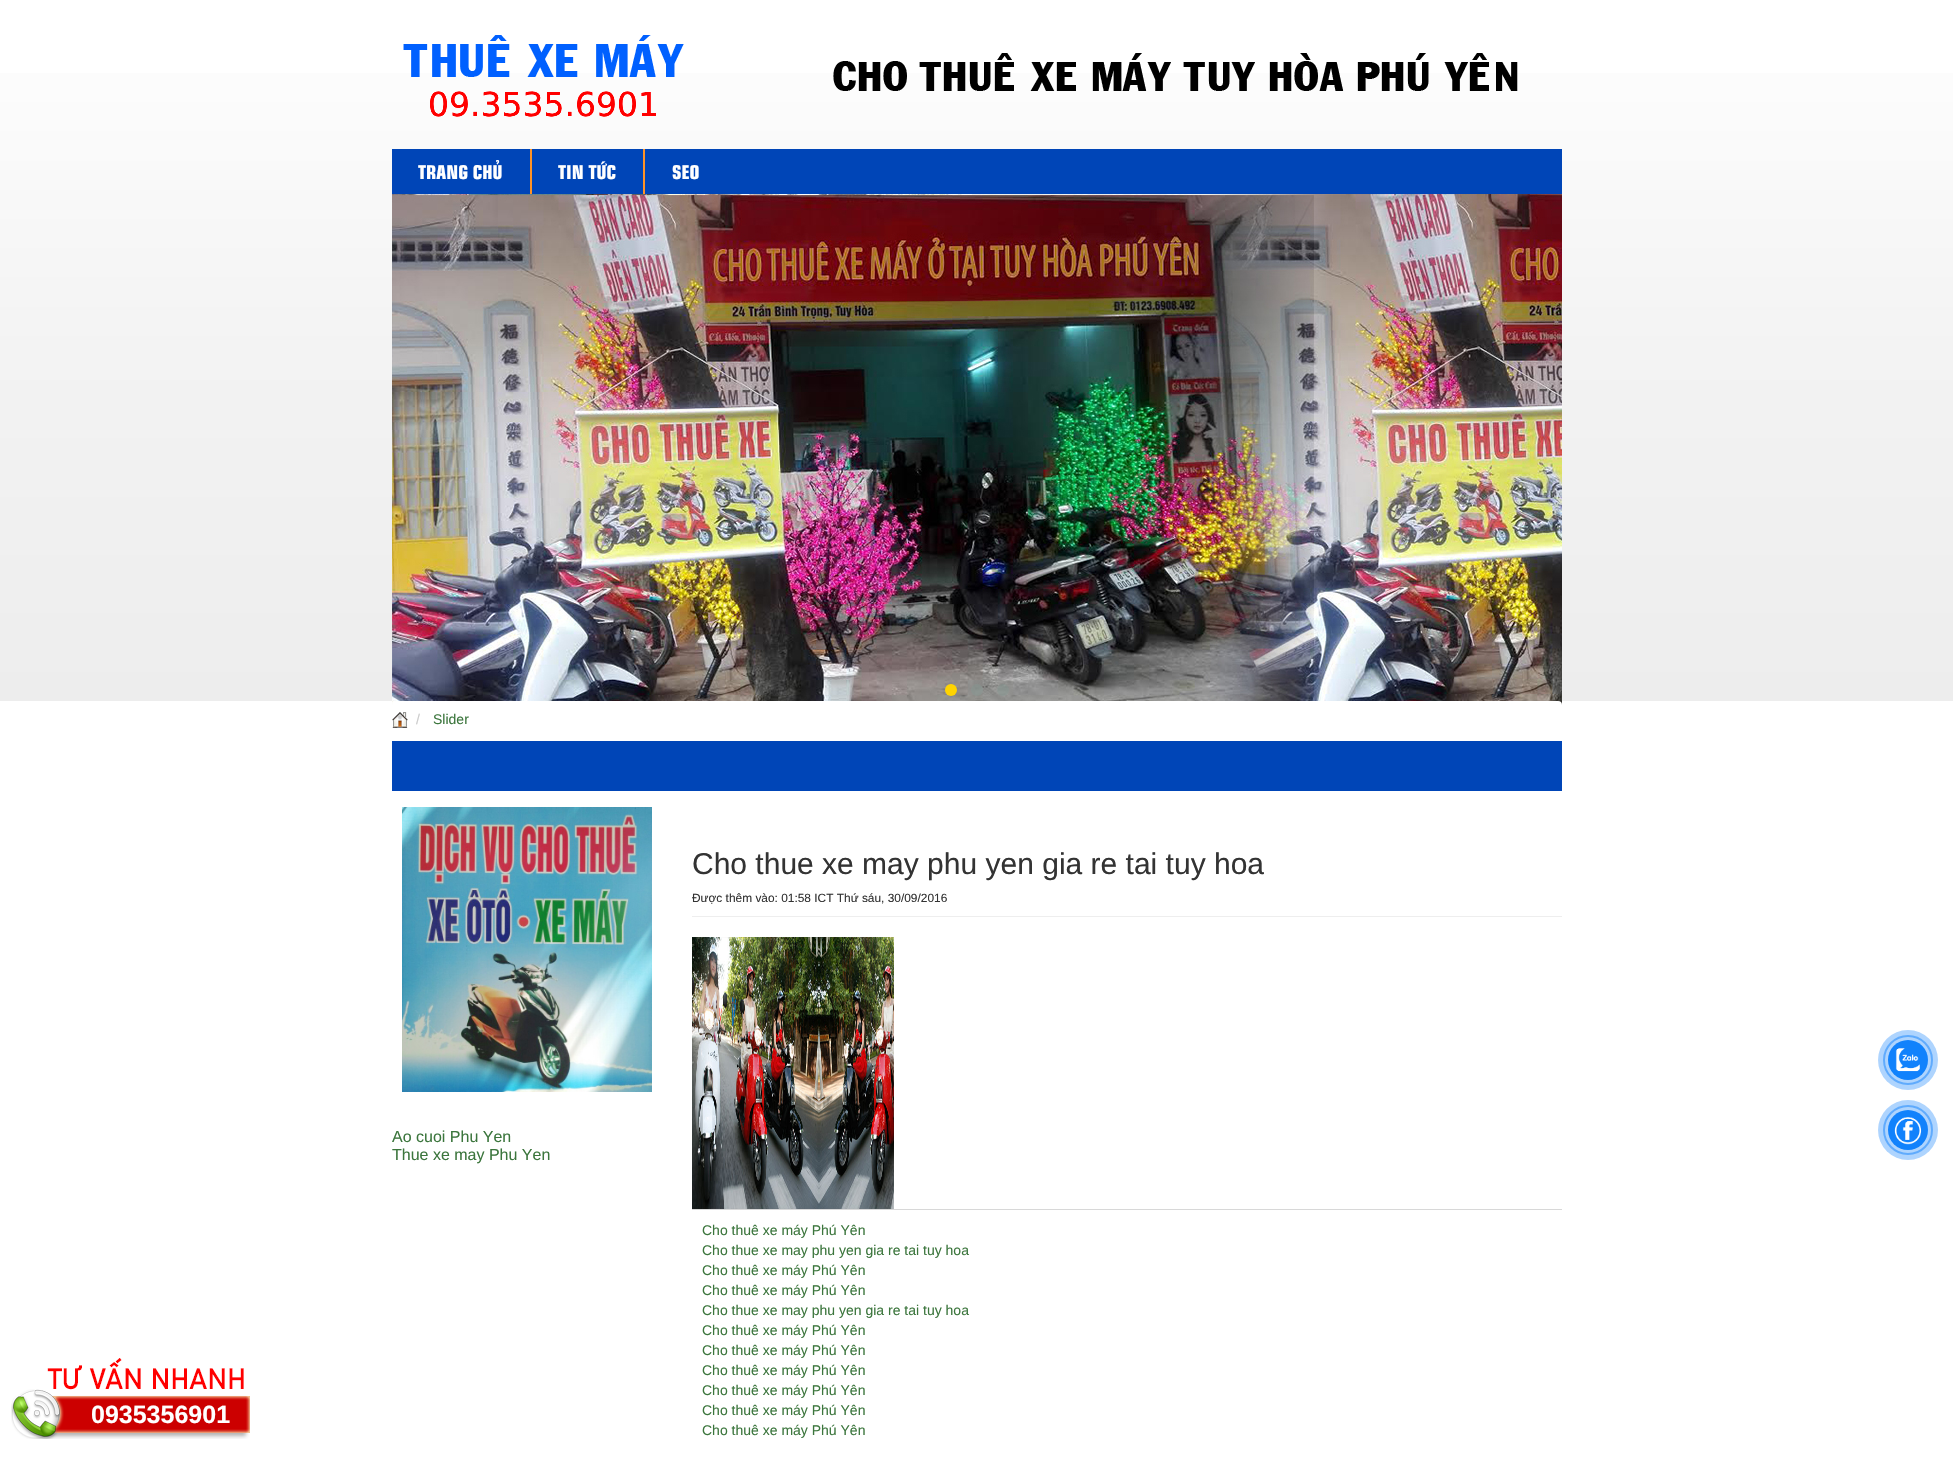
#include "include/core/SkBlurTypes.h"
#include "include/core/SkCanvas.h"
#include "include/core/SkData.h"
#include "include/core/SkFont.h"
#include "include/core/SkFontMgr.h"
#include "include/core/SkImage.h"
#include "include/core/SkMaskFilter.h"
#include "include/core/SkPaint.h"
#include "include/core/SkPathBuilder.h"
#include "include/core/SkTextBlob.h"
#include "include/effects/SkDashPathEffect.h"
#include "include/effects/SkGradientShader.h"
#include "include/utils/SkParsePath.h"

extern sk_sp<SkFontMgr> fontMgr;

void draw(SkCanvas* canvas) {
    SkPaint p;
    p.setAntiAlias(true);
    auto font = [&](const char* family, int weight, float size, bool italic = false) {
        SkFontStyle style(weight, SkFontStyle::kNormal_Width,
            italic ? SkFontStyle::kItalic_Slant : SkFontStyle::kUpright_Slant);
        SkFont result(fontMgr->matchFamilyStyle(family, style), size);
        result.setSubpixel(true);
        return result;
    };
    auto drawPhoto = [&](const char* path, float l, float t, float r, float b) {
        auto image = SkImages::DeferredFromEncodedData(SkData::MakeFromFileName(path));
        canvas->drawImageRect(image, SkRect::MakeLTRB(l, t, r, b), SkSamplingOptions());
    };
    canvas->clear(0xFFFFFFFF);
    {
        const SkColor colors[] = {0xFFFFFFFF, 0xFFF3F3F3, 0xFFEDEDED, 0xFFFFFFFF};
        const float stops[] = {0, 0.5f, 1, 1};
        const SkPoint ends[] = {{977, 0}, {977, 701}};
        p.setShader(SkGradientShader::MakeLinear(ends, colors, stops, 4, SkTileMode::kClamp));
        p.setAlpha(255);
    }
    canvas->drawRect(SkRect::MakeLTRB(0, 73, 1953, 701), p);
    drawPhoto("media/1.png", 403, 35, 684, 117);
    drawPhoto("media/2.png", 833, 53, 1518, 91);
    p.setShader(nullptr);
    p.setColor(0xFF0045B7);
    canvas->drawRect(SkRect::MakeLTRB(392, 149, 1562, 194), p);
    p.setColor(0xFFFF9326);
    canvas->drawRect(SkRect::MakeLTRB(530, 149, 532, 194), p);
    auto font1 = font("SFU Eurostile", 700, 19);
    p.setColor(0xFFFFFFFF);
    canvas->drawString("TRANG CHỦ", 418, 179, font1, p);
    p.setColor(0xFFFF9326);
    canvas->drawRect(SkRect::MakeLTRB(643, 149, 645, 194), p);
    p.setColor(0xFFFFFFFF);
    canvas->drawString("TIN TỨC", 558, 179, font1, p);
    canvas->drawString("SEO", 672, 179, font1, p);
    drawPhoto("media/3.png", 392, 194, 1562, 705);
    p.setColor(0xFFFFD400);
    canvas->drawCircle(951, 690, 6, p);
    p.setColor(0x80869791);
    canvas->drawCircle(977, 690, 6, p);
    canvas->drawCircle(1003, 690, 6, p);
    p.setColor(0xFFFFFFFF);
    canvas->drawRoundRect(SkRect::MakeLTRB(392, 701, 1562, 737), 4, 4, p);
    drawPhoto("media/4.png", 392, 712, 408, 728);
    auto font2 = font("Liberation Sans", 400, 14);
    p.setColor(0xFFCCCCCC);
    canvas->drawString("/", 416, 724, font2, p);
    p.setColor(0xFF3C763D);
    canvas->drawString("Slider", 433, 724, font2, p);
    p.setColor(0xFF0045B7);
    canvas->drawRect(SkRect::MakeLTRB(392, 741, 1562, 791), p);
    drawPhoto("media/5.png", 402, 807, 652, 1092);
    auto font3 = font("Liberation Sans", 400, 16);
    p.setColor(0xFF3C763D);
    canvas->drawString("Ao cuoi Phu Yen", 392, 1142, font3, p);
    canvas->drawString("Thue xe may Phu Yen", 392, 1160, font3, p);
    p.setColor(0xFFEEEEEE);
    canvas->drawRect(SkRect::MakeLTRB(692, 916, 1562, 917), p);
    auto font4 = font("Liberation Sans", 400, 30);
    p.setColor(0xFF333333);
    canvas->drawString("Cho thue xe may phu yen gia re tai tuy hoa", 692, 874, font4, p);
    auto font5 = font("Liberation Sans", 400, 11.9f);
    canvas->drawString("Được thêm vào: 01:58 ICT Thứ sáu, 30/09/2016", 692, 902, font5, p);
    drawPhoto("media/6.png", 692, 937, 894, 1209);
    p.setColor(0xFFD8D8D8);
    canvas->drawRect(SkRect::MakeLTRB(692, 1209, 1562, 1210), p);
    p.setColor(0xFF3C763D);
    {
        const struct { const char* s; float x, y; } items[] = {
            {"Cho thuê xe máy Phú Yên", 702, 1235},
            {"Cho thue xe may phu yen gia re tai tuy hoa", 702, 1255},
            {"Cho thuê xe máy Phú Yên", 702, 1275},
            {"Cho thuê xe máy Phú Yên", 702, 1295},
            {"Cho thue xe may phu yen gia re tai tuy hoa", 702, 1315},
            {"Cho thuê xe máy Phú Yên", 702, 1335},
            {"Cho thuê xe máy Phú Yên", 702, 1355},
            {"Cho thuê xe máy Phú Yên", 702, 1375},
            {"Cho thuê xe máy Phú Yên", 702, 1395},
            {"Cho thuê xe máy Phú Yên", 702, 1415},
            {"Cho thuê xe máy Phú Yên", 702, 1435},
        };
        for (auto [s, x, y] : items) {
            canvas->drawString(s, x, y, font2, p);
        }
    }
    p.setStyle(SkPaint::kStroke_Style);
    p.setStrokeWidth(2);
    p.setColor(0xFF88C1FE);
    canvas->drawCircle(1908, 1060, 24, p);
    p.setStyle(SkPaint::kFill_Style);
    p.setColor(0x571182FC);
    canvas->drawCircle(1908, 1060, 30, p);
    p.setColor(0xFF1182FC);
    canvas->drawCircle(1908, 1060, 20, p);
    drawPhoto("media/7.png", 1895, 1048, 1920, 1072);
    p.setStyle(SkPaint::kStroke_Style);
    p.setColor(0xFF88C1FE);
    canvas->drawCircle(1908, 1130, 24, p);
    p.setStyle(SkPaint::kFill_Style);
    p.setColor(0x571182FC);
    canvas->drawCircle(1908, 1130, 30, p);
    p.setColor(0xFF1182FC);
    canvas->drawCircle(1908, 1130, 20, p);
    drawPhoto("media/8.png", 1894, 1117, 1922, 1145);
    drawPhoto("media/9.png", 11, 1358, 250, 1439);
    auto font6 = font("Liberation Sans", 700, 25);
    p.setColor(0xFFFFFFFF);
    canvas->drawString("0935356901", 91, 1423, font6, p);
}
